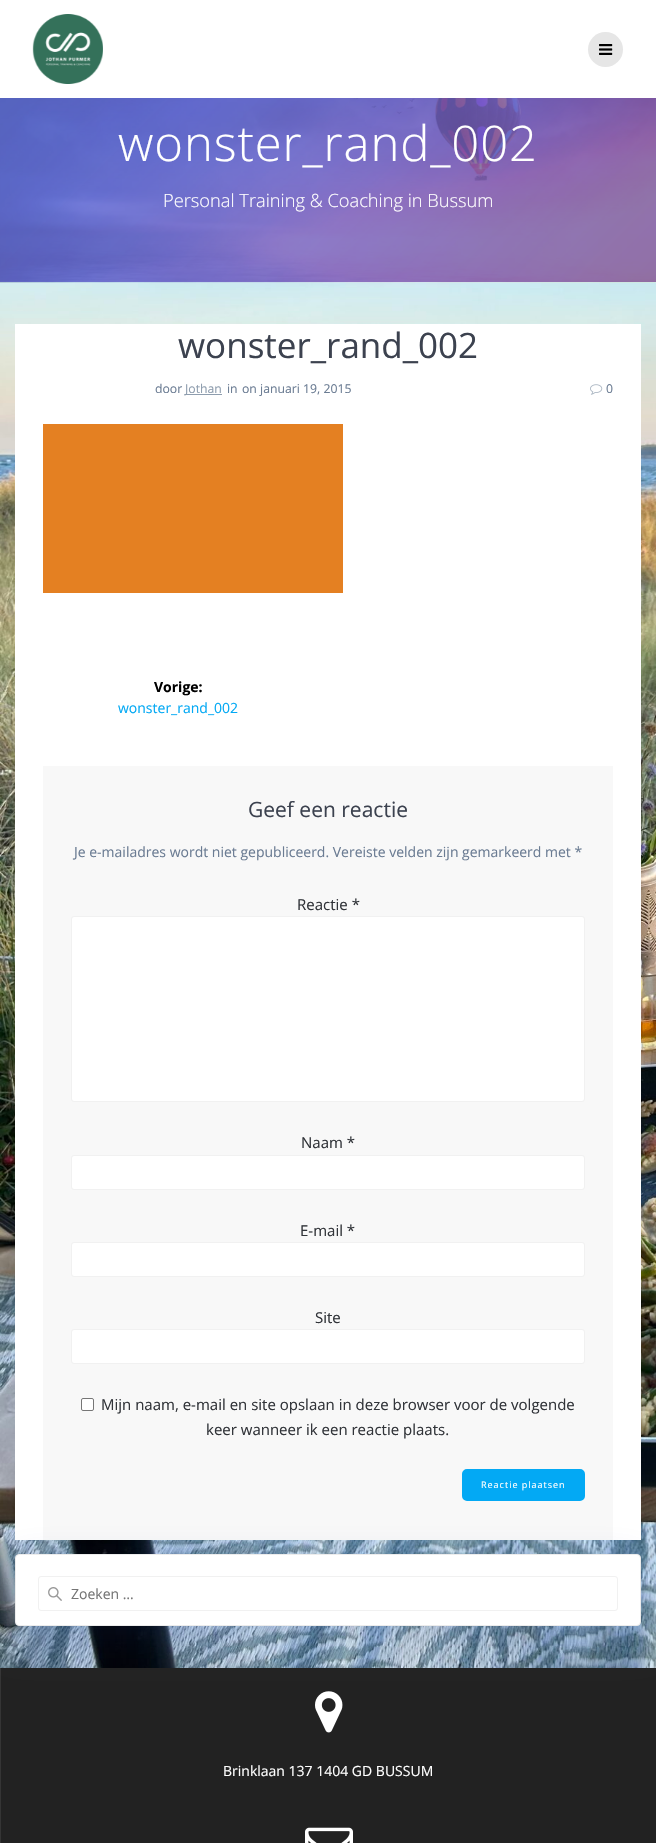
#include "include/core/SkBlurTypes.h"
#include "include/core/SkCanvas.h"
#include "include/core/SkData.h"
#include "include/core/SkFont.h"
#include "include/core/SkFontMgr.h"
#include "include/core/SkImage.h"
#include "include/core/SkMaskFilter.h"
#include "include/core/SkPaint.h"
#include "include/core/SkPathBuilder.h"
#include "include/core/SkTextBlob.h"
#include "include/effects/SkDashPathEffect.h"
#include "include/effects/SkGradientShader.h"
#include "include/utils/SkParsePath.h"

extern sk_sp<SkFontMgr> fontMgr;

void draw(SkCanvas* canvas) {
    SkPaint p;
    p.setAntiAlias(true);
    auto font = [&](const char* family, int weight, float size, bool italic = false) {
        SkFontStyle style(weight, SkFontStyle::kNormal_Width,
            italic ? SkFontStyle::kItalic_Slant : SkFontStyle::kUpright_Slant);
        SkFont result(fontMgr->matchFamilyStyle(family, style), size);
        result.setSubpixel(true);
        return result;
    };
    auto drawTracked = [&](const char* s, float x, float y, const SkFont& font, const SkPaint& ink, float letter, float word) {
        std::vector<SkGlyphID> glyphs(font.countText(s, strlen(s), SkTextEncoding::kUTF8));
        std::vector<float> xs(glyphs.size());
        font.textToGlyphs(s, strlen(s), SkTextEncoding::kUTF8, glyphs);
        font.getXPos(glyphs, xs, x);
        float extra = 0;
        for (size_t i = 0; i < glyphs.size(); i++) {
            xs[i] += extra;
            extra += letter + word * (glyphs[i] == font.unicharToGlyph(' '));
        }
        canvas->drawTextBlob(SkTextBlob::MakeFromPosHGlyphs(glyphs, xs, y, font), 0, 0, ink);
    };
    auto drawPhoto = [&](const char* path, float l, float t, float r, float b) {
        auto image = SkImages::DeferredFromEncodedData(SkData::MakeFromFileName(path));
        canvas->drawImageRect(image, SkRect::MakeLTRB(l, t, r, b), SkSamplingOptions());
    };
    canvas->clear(0xFFFFFFFF);
    drawPhoto("media/1.png", 0, 98, 656, 1668);
    drawPhoto("media/2.png", 32, 14, 103, 84);
    p.setColor(0xFFE6E6E6);
    canvas->drawCircle(605.5f, 49.5f, 17.5f, p);
    drawPhoto("media/3.png", 599, 44, 613, 55);
    drawPhoto("media/4.png", 0, 98, 656, 283);
    {
        const SkColor colors[] = {0xCC667EEA, 0xCC764BA2};
        const float stops[] = {0, 1};
        const SkPoint ends[] = {{93, -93}, {563, 376}};
        p.setShader(SkGradientShader::MakeLinear(ends, colors, stops, 2, SkTileMode::kClamp));
        p.setAlpha(255);
    }
    canvas->drawRect(SkRect::MakeLTRB(0, 98, 656, 282), p);
    auto font1 = font("Open Sans", 300, 49);
    p.setShader(nullptr);
    p.setColor(0xFFFFFFFF);
    drawTracked("wonster_rand_002", 118, 161, font1, p, 0.9f, 0);
    auto font2 = font("Open Sans", 300, 18.25f);
    canvas->drawString("Personal Training & Coaching in Bussum", 163, 207, font2, p);
    canvas->drawRect(SkRect::MakeLTRB(15, 324, 641, 1540), p);
    auto font3 = font("Open Sans", 400, 35);
    p.setColor(0xFF3C424F);
    canvas->drawString("wonster_rand_002", 178, 358, font3, p);
    auto font4 = font("Open Sans", 400, 12.25f);
    p.setColor(0xFF6B7C93);
    canvas->drawString("door", 155, 393, font4, p);
    p.setColor(0xFF8E9DAE);
    canvas->drawRect(SkRect::MakeLTRB(185, 394, 222, 395), p);
    canvas->drawString("Jothan", 185, 393, font4, p);
    p.setColor(0xFF6B7C93);
    canvas->drawString("in", 227, 393, font4, p);
    canvas->drawString("on januari 19, 2015", 242, 393, font4, p);
    drawPhoto("media/5.png", 590, 384, 603, 395);
    canvas->drawString("0", 606, 393, font4, p);
    p.setColor(0xFFE48022);
    canvas->drawRect(SkRect::MakeLTRB(43, 424, 343, 593), p);
    auto font5 = font("Open Sans", 700, 14);
    p.setColor(0xFF000000);
    canvas->drawString("Vorige:", 154, 692, font5, p);
    auto font6 = font("Open Sans", 400, 14);
    p.setColor(0xFF03A9F4);
    canvas->drawString("wonster_rand_002", 118, 713, font6, p);
    p.setColor(0xFFF8F8F8);
    canvas->drawRect(SkRect::MakeLTRB(43, 766, 613, 1540), p);
    auto font7 = font("Open Sans", 400, 21);
    p.setColor(0xFF3C424F);
    canvas->drawString("Geef een reactie", 248, 817, font7, p);
    p.setColor(0xFF6B7C93);
    canvas->drawString("Je e-mailadres wordt niet gepubliceerd. Vereiste velden zijn gemarkeerd met *", 74, 857, font6, p);
    auto font8 = font("Open Sans", 400, 15);
    p.setColor(0xFF313439);
    canvas->drawString("Reactie *", 297, 910, font8, p);
    p.setColor(0xFFFFFFFF);
    canvas->drawRoundRect(SkRect::MakeLTRB(71.5f, 916.5f, 584.5f, 1101.5f), 2.5f, 2.5f, p);
    p.setStyle(SkPaint::kStroke_Style);
    p.setStrokeWidth(1);
    p.setColor(0xFFF1F1F1);
    canvas->drawRoundRect(SkRect::MakeLTRB(71.5f, 916.5f, 584.5f, 1101.5f), 2.5f, 2.5f, p);
    p.setStyle(SkPaint::kFill_Style);
    p.setColor(0xFF313439);
    canvas->drawString("Naam *", 301, 1148, font8, p);
    p.setColor(0xFFFFFFFF);
    canvas->drawRoundRect(SkRect::MakeLTRB(71.5f, 1155.5f, 584.5f, 1189.5f), 2.5f, 2.5f, p);
    p.setStyle(SkPaint::kStroke_Style);
    p.setColor(0xFFF1F1F1);
    canvas->drawRoundRect(SkRect::MakeLTRB(71.5f, 1155.5f, 584.5f, 1189.5f), 2.5f, 2.5f, p);
    p.setStyle(SkPaint::kFill_Style);
    p.setColor(0xFF313439);
    canvas->drawString("E-mail *", 300, 1236, font8, p);
    p.setColor(0xFFFFFFFF);
    canvas->drawRoundRect(SkRect::MakeLTRB(71.5f, 1242.5f, 584.5f, 1276.5f), 2.5f, 2.5f, p);
    p.setStyle(SkPaint::kStroke_Style);
    p.setColor(0xFFF1F1F1);
    canvas->drawRoundRect(SkRect::MakeLTRB(71.5f, 1242.5f, 584.5f, 1276.5f), 2.5f, 2.5f, p);
    p.setStyle(SkPaint::kFill_Style);
    p.setColor(0xFF313439);
    canvas->drawString("Site", 315, 1323, font8, p);
    p.setColor(0xFFFFFFFF);
    canvas->drawRoundRect(SkRect::MakeLTRB(71.5f, 1329.5f, 584.5f, 1363.5f), 2.5f, 2.5f, p);
    p.setStyle(SkPaint::kStroke_Style);
    p.setColor(0xFFF1F1F1);
    canvas->drawRoundRect(SkRect::MakeLTRB(71.5f, 1329.5f, 584.5f, 1363.5f), 2.5f, 2.5f, p);
    p.setStyle(SkPaint::kFill_Style);
    p.setColor(0xFFFFFFFF);
    canvas->drawRoundRect(SkRect::MakeLTRB(81.5f, 1398.5f, 93.5f, 1410.5f), 1.5f, 1.5f, p);
    p.setStyle(SkPaint::kStroke_Style);
    p.setColor(0xFF767676);
    canvas->drawRoundRect(SkRect::MakeLTRB(81.5f, 1398.5f, 93.5f, 1410.5f), 1.5f, 1.5f, p);
    p.setStyle(SkPaint::kFill_Style);
    p.setColor(0xFF313439);
    canvas->drawString("Mijn naam, e-mail en site opslaan in deze browser voor de volgende", 101, 1410, font8, p);
    canvas->drawString("keer wanneer ik een reactie plaats.", 206, 1435, font8, p);
    p.setColor(0xFF03A9F4);
    canvas->drawRoundRect(SkRect::MakeLTRB(463, 1470, 584, 1500), 4, 4, p);
    p.setStyle(SkPaint::kStroke_Style);
    p.setStrokeWidth(2);
    canvas->drawRoundRect(SkRect::MakeLTRB(463, 1470, 584, 1500), 4, 4, p);
    auto font9 = font("Open Sans", 400, 9);
    p.setStyle(SkPaint::kFill_Style);
    p.setColor(0xFFFFFFFF);
    drawTracked("Reactie plaatsen", 481, 1488, font9, p, 1, 0);
    p.setColor(0xFF222222);
    canvas->drawRect(SkRect::MakeLTRB(1, 1668, 656, 1843), p);
    p.setColor(0xFF353535);
    canvas->drawRect(SkRect::MakeLTRB(0, 1668, 1, 1843), p);
    drawPhoto("media/7.png", 315, 1691, 343, 1733);
    p.setColor(0x26234598);
    p.setMaskFilter(SkMaskFilter::MakeBlur(kNormal_SkBlurStyle, 19.5f));
    canvas->drawRoundRect(SkRect::MakeLTRB(15, 1562, 641, 1634), 4, 4, p);
    p.setMaskFilter(nullptr);
    p.setColor(0xFFFFFFFF);
    canvas->drawRoundRect(SkRect::MakeLTRB(15.5f, 1554.5f, 640.5f, 1625.5f), 3.5f, 3.5f, p);
    p.setStyle(SkPaint::kStroke_Style);
    p.setStrokeWidth(1);
    p.setColor(0xFFECECEC);
    canvas->drawRoundRect(SkRect::MakeLTRB(15.5f, 1554.5f, 640.5f, 1625.5f), 3.5f, 3.5f, p);
    drawPhoto("media/6.png", 48, 1587, 62, 1601);
    p.setColor(0xFFF1F1F1);
    canvas->drawRoundRect(SkRect::MakeLTRB(38.5f, 1576.5f, 617.5f, 1610.5f), 2.5f, 2.5f, p);
    p.setStyle(SkPaint::kFill_Style);
    p.setColor(0xFF757575);
    canvas->drawString("Zoeken …", 71, 1599, font6, p);
    p.setColor(0xFFFFFFFF);
    canvas->drawString("Brinklaan 137 1404 GD BUSSUM", 223, 1776, font6, p);
    drawPhoto("media/8.png", 305, 1827, 353, 1843);
}
